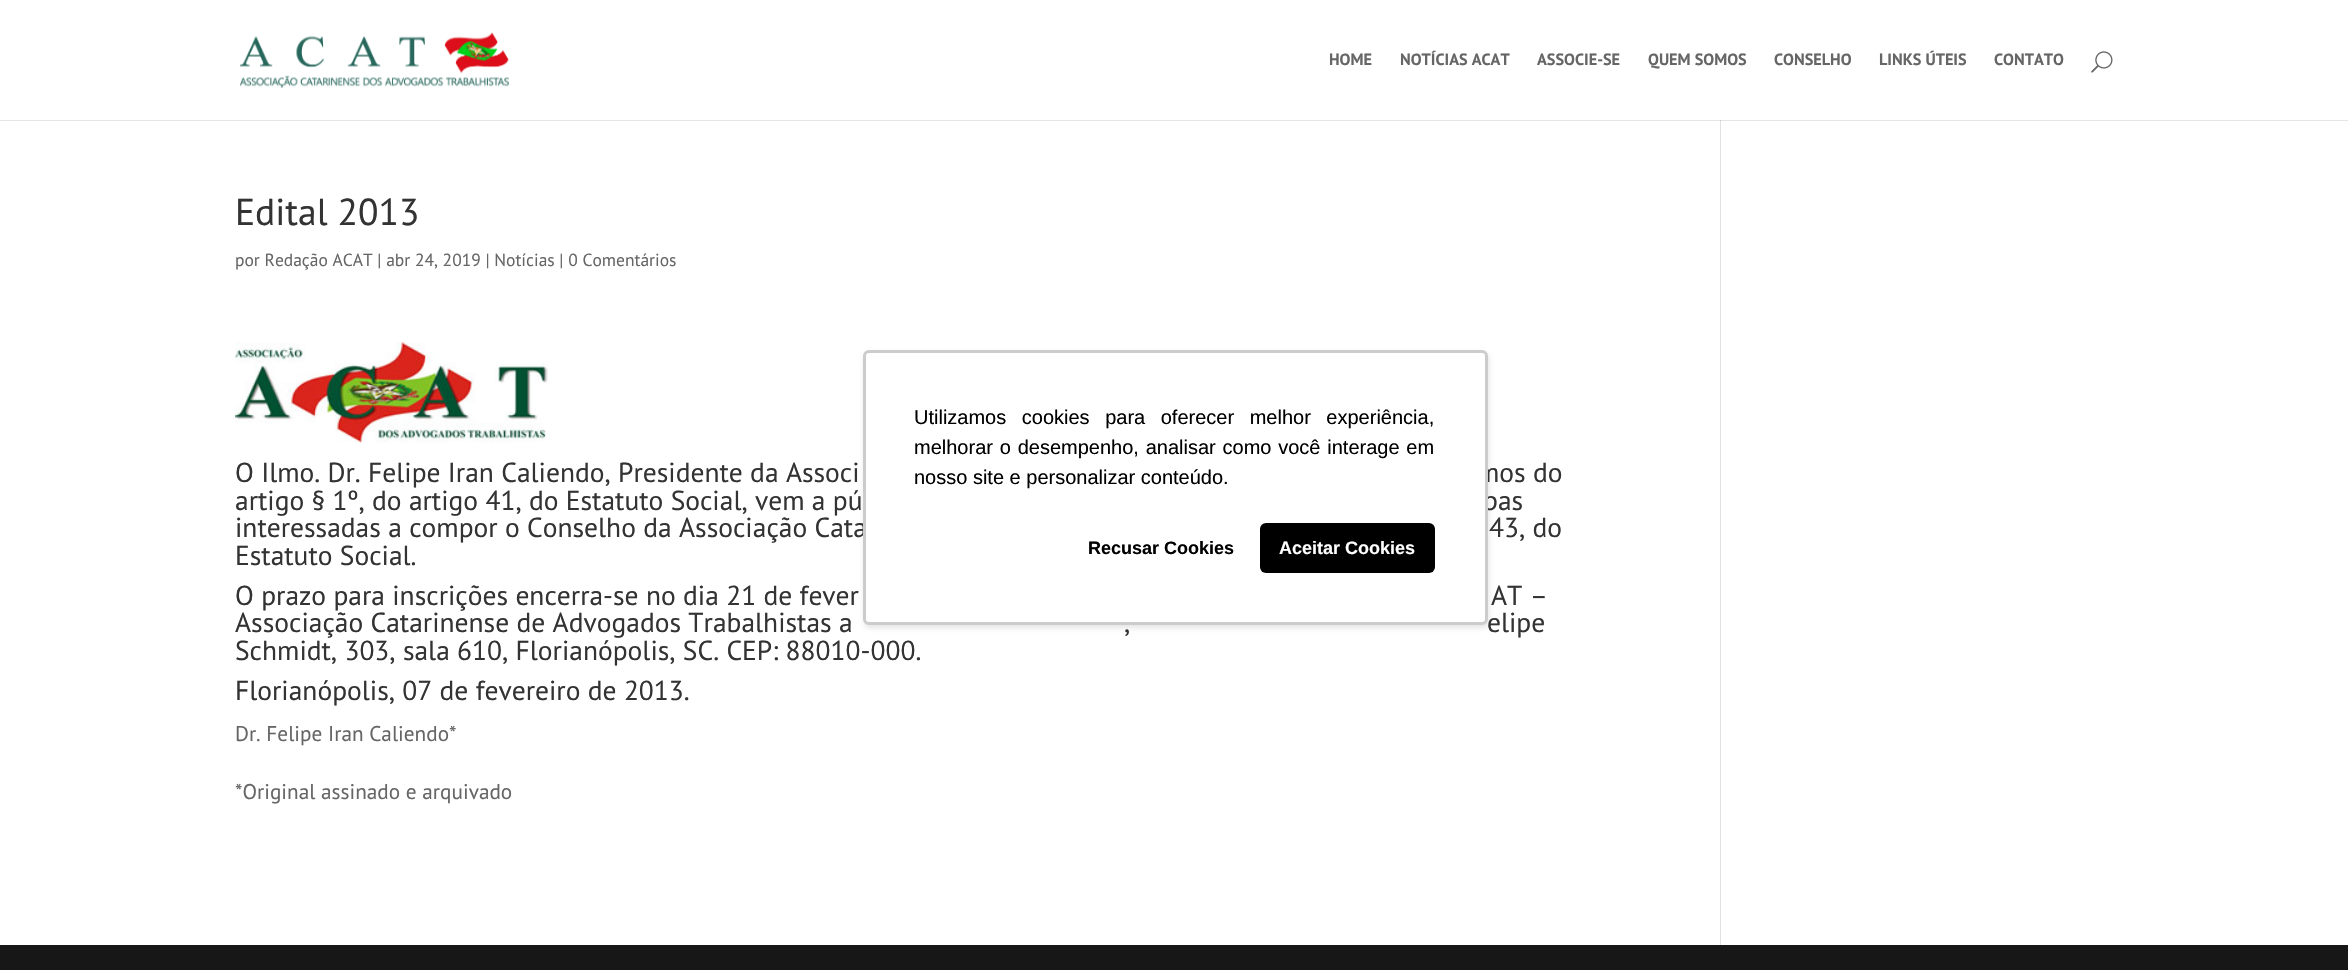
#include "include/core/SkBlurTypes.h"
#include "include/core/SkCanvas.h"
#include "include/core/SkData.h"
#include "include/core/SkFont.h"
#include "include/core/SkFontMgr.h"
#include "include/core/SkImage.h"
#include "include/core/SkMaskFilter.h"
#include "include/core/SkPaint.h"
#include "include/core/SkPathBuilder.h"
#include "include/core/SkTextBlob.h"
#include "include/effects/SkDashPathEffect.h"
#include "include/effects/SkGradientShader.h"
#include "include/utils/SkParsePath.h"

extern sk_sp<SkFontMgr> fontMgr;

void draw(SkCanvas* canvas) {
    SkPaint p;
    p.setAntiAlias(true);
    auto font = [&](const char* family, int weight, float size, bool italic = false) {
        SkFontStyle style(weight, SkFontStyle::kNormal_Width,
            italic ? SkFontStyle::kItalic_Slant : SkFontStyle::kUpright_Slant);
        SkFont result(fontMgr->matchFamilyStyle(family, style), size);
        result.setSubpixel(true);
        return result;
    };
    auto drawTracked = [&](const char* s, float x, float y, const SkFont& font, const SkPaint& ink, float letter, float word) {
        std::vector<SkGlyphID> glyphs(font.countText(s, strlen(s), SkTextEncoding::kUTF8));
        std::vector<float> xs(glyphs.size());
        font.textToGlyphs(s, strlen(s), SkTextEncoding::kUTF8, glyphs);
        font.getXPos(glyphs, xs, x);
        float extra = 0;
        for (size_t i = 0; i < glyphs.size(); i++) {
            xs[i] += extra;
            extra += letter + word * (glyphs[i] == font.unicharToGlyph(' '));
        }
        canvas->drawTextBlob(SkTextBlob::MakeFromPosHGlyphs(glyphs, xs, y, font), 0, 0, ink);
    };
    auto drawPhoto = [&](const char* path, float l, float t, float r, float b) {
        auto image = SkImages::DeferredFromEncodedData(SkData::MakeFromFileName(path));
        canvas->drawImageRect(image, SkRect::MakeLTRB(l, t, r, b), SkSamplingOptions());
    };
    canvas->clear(0xFFFFFFFF);
    p.setColor(0xFFE2E2E2);
    canvas->drawRect(SkRect::MakeLTRB(1720, 120, 1721, 945), p);
    p.setColor(0x1A000000);
    canvas->drawPath(SkPathBuilder().moveTo(0, 120).lineTo(0, 121).lineTo(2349, 121).lineTo(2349, 1).lineTo(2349, 120).close().detach(), p);
    drawPhoto("media/1.png", 240, 32, 509, 88);
    auto font1 = font("PT Sans", 700, 16.25f);
    p.setColor(0xFF666666);
    {
        const struct { const char* s; float x, y; } items[] = {
            {"HOME", 1329, 65},
            {"NOTÍCIAS ACAT", 1400, 65},
            {"ASSOCIE-SE", 1537, 65},
            {"QUEM SOMOS", 1648, 65},
            {"CONSELHO", 1774, 65},
            {"LINKS ÚTEIS", 1879, 65},
            {"CONTATO", 1994, 65},
        };
        for (auto [s, x, y] : items) {
            canvas->drawString(s, x, y, font1, p);
        }
    }
    drawPhoto("media/2.png", 2091, 51, 2113, 73);
    auto font2 = font("PT Sans", 400, 37.5f);
    p.setColor(0xFF333333);
    canvas->drawString("Edital 2013", 235, 225, font2, p);
    auto font3 = font("PT Sans", 400, 17.5f);
    p.setColor(0xFF666666);
    canvas->drawString("por Redação ACAT | abr 24, 2019 | Notícias | 0 Comentários", 235, 266, font3, p);
    drawPhoto("media/3.png", 235, 342, 548, 443);
    auto font4 = font("PT Sans", 400, 27.5f);
    p.setColor(0xFF333333);
    {
        const struct { const char* s; float x, y; } items[] = {
            {"O Ilmo. Dr. Felipe Iran Caliendo, Presidente da Associ", 235, 482},
            {"mos do", 1477, 482},
            {"artigo § 1º, do artigo 41, do Estatuto Social, vem a pú", 235, 510},
            {"pas", 1483, 510},
            {"interessadas a compor o Conselho da Associação Cata", 235, 537},
            {"43, do", 1489, 537},
            {"Estatuto Social.", 235, 565},
            {"O prazo para inscrições encerra-se no dia 21 de fever", 235, 605},
            {"AT –", 1491, 605},
            {"Associação Catarinense de Advogados Trabalhistas a", 235, 632},
            {",", 1124, 632},
            {"elipe", 1487, 632},
            {"Schmidt, 303, sala 610, Florianópolis, SC. CEP: 88010-000.", 235, 660},
            {"Florianópolis, 07 de fevereiro de 2013.", 235, 700},
        };
        for (auto [s, x, y] : items) {
            canvas->drawString(s, x, y, font4, p);
        }
    }
    auto font5 = font("PT Sans", 400, 21.25f);
    p.setColor(0xFF666666);
    canvas->drawString("Dr. Felipe Iran Caliendo*", 235, 741, font5, p);
    canvas->drawString("*Original assinado e arquivado", 235, 799, font5, p);
    p.setColor(0xFF171717);
    canvas->drawRect(SkRect::MakeLTRB(0, 945, 2348, 970), p);
    p.setColor(0x1A000000);
    p.setMaskFilter(SkMaskFilter::MakeBlur(kNormal_SkBlurStyle, 2.5f));
    canvas->drawRoundRect(SkRect::MakeLTRB(864, 353, 1489, 628), 6, 6, p);
    p.setMaskFilter(nullptr);
    p.setColor(0xFFFFFFFF);
    canvas->drawRoundRect(SkRect::MakeLTRB(863, 350, 1488, 625), 6, 6, p);
    p.setStyle(SkPaint::kStroke_Style);
    p.setStrokeWidth(3);
    p.setColor(0x33000000);
    canvas->drawRoundRect(SkRect::MakeLTRB(864.5f, 351.5f, 1486.5f, 623.5f), 4.5f, 4.5f, p);
    auto font6 = font("Liberation Sans", 400, 20);
    p.setStyle(SkPaint::kFill_Style);
    p.setColor(0xFF000000);
    drawTracked("Utilizamos cookies para oferecer melhor experiência,", 914, 424, font6, p, 0, 10);
    drawTracked("melhorar o desempenho, analisar como você interage em", 914, 454, font6, p, 0, 1.25f);
    canvas->drawString("nosso site e personalizar conteúdo.", 914, 484, font6, p);
    auto font7 = font("Liberation Sans", 700, 18);
    canvas->drawString("Recusar Cookies", 1088, 554, font7, p);
    canvas->drawRoundRect(SkRect::MakeLTRB(1260, 523, 1435, 573), 6, 6, p);
    p.setColor(0xFFFFFFFF);
    canvas->drawString("Aceitar Cookies", 1279, 554, font7, p);
}
